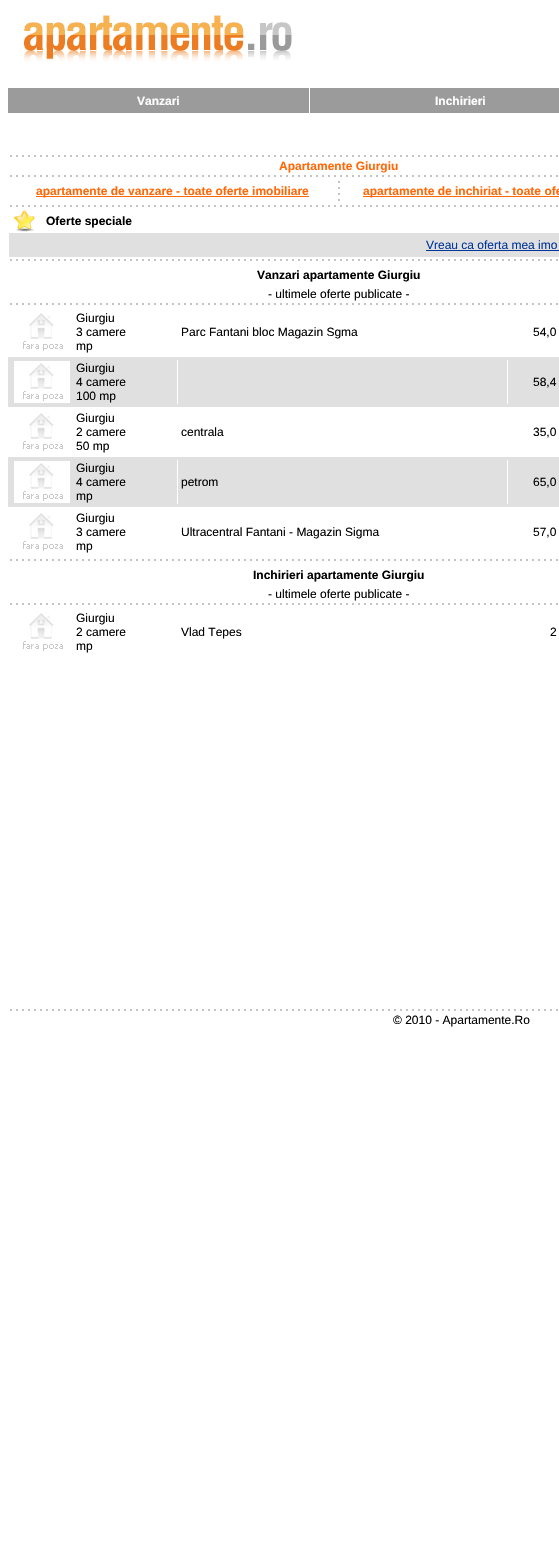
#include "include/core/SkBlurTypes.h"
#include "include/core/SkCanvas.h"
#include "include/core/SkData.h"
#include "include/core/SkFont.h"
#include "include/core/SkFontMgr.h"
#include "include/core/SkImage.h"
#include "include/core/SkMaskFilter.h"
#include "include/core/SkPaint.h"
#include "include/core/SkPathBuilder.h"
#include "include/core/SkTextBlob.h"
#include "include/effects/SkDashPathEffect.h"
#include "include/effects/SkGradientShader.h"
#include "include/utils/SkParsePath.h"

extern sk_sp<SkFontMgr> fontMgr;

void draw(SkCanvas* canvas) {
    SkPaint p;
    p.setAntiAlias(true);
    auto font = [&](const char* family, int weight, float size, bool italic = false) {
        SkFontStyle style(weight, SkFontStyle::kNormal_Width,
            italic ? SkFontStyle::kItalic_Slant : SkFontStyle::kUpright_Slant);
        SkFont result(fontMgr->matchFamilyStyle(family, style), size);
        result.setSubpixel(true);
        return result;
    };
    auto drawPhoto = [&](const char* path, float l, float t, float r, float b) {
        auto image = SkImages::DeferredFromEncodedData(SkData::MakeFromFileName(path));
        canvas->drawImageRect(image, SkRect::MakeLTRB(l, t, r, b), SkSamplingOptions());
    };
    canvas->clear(0xFFFFFFFF);
    drawPhoto("media/1.png", 24, 15, 292, 62);
    p.setColor(0xFF9B9B9B);
    canvas->drawRect(SkRect::MakeLTRB(8, 88, 559, 113), p);
    p.setColor(0xFFFFFFFF);
    canvas->drawRect(SkRect::MakeLTRB(309, 88, 310, 113), p);
    auto font1 = font("Liberation Sans", 700, 12);
    canvas->drawString("Vanzari", 137, 105, font1, p);
    canvas->drawString("Inchirieri", 435, 105, font1, p);
    drawPhoto("media/2.png", 10, 155, 558, 157);
    p.setColor(0xFFFF6808);
    canvas->drawString("Apartamente Giurgiu", 279, 170, font1, p);
    drawPhoto("media/2.png", 10, 175, 558, 177);
    canvas->drawRect(SkRect::MakeLTRB(36, 196, 309, 197), p);
    canvas->drawString("apartamente de vanzare - toate oferte imobiliare", 36, 195, font1, p);
    drawPhoto("media/3.png", 338, 181, 340, 201);
    canvas->drawRect(SkRect::MakeLTRB(363, 196, 559, 197), p);
    canvas->drawString("apartamente de inchiriat - toate ofe", 363, 195, font1, p);
    drawPhoto("media/2.png", 10, 205, 558, 207);
    drawPhoto("media/4.png", 14, 210, 35, 232);
    p.setColor(0xFF000000);
    canvas->drawString("Oferte speciale", 46, 225, font1, p);
    p.setColor(0xFFE0E0E0);
    canvas->drawRect(SkRect::MakeLTRB(9, 233, 559, 257), p);
    auto font2 = font("Liberation Sans", 400, 12);
    p.setColor(0xFF00369A);
    canvas->drawString("Vreau ca oferta mea imo", 426, 249, font2, p);
    canvas->drawRect(SkRect::MakeLTRB(426, 250, 559, 251), p);
    drawPhoto("media/2.png", 10, 259, 558, 261);
    p.setColor(0xFF000000);
    canvas->drawString("Vanzari apartamente Giurgiu", 257, 279, font1, p);
    canvas->drawString("- ultimele oferte publicate -", 268, 298, font2, p);
    drawPhoto("media/2.png", 10, 303, 558, 305);
    drawPhoto("media/5.png", 23, 313, 63, 351);
    {
        const struct { const char* s; float x, y; } items[] = {
            {"Giurgiu", 76, 322},
            {"3 camere", 76, 336},
            {"mp", 76, 350},
            {"Parc Fantani bloc Magazin Sgma", 181, 336},
            {"54,0", 533, 336},
        };
        for (auto [s, x, y] : items) {
            canvas->drawString(s, x, y, font2, p);
        }
    }
    p.setColor(0xFFE0E0E0);
    canvas->drawRect(SkRect::MakeLTRB(8, 357, 559, 407), p);
    drawPhoto("media/6.png", 14, 361, 70, 403);
    p.setColor(0xFFFFFFFF);
    canvas->drawRect(SkRect::MakeLTRB(177, 360, 178, 404), p);
    p.setColor(0xFF000000);
    {
        const struct { const char* s; float x, y; } items[] = {
            {"Giurgiu", 76, 372},
            {"4 camere", 76, 386},
            {"100 mp", 76, 400},
        };
        for (auto [s, x, y] : items) {
            canvas->drawString(s, x, y, font2, p);
        }
    }
    p.setColor(0xFFFFFFFF);
    canvas->drawRect(SkRect::MakeLTRB(507, 360, 508, 404), p);
    p.setColor(0xFF000000);
    canvas->drawString("58,4", 533, 386, font2, p);
    drawPhoto("media/5.png", 23, 413, 63, 451);
    {
        const struct { const char* s; float x, y; } items[] = {
            {"Giurgiu", 76, 422},
            {"2 camere", 76, 436},
            {"50 mp", 76, 450},
            {"centrala", 181, 436},
            {"35,0", 533, 436},
        };
        for (auto [s, x, y] : items) {
            canvas->drawString(s, x, y, font2, p);
        }
    }
    p.setColor(0xFFE0E0E0);
    canvas->drawRect(SkRect::MakeLTRB(8, 457, 559, 507), p);
    drawPhoto("media/6.png", 14, 461, 70, 503);
    p.setColor(0xFFFFFFFF);
    canvas->drawRect(SkRect::MakeLTRB(177, 460, 178, 504), p);
    p.setColor(0xFF000000);
    {
        const struct { const char* s; float x, y; } items[] = {
            {"Giurgiu", 76, 472},
            {"4 camere", 76, 486},
            {"mp", 76, 500},
        };
        for (auto [s, x, y] : items) {
            canvas->drawString(s, x, y, font2, p);
        }
    }
    p.setColor(0xFFFFFFFF);
    canvas->drawRect(SkRect::MakeLTRB(507, 460, 508, 504), p);
    p.setColor(0xFF000000);
    canvas->drawString("petrom", 181, 486, font2, p);
    canvas->drawString("65,0", 533, 486, font2, p);
    drawPhoto("media/5.png", 23, 513, 63, 551);
    {
        const struct { const char* s; float x, y; } items[] = {
            {"Giurgiu", 76, 522},
            {"3 camere", 76, 536},
            {"mp", 76, 550},
            {"Ultracentral Fantani - Magazin Sigma", 181, 536},
            {"57,0", 533, 536},
        };
        for (auto [s, x, y] : items) {
            canvas->drawString(s, x, y, font2, p);
        }
    }
    drawPhoto("media/2.png", 10, 559, 558, 561);
    canvas->drawString("Inchirieri apartamente Giurgiu", 253, 579, font1, p);
    canvas->drawString("- ultimele oferte publicate -", 268, 598, font2, p);
    drawPhoto("media/2.png", 10, 603, 558, 605);
    drawPhoto("media/5.png", 23, 613, 63, 651);
    {
        const struct { const char* s; float x, y; } items[] = {
            {"Giurgiu", 76, 622},
            {"2 camere", 76, 636},
            {"mp", 76, 650},
            {"Vlad Tepes", 181, 636},
            {"2", 550, 636},
        };
        for (auto [s, x, y] : items) {
            canvas->drawString(s, x, y, font2, p);
        }
    }
    drawPhoto("media/2.png", 10, 1009, 558, 1011);
    canvas->drawString("© 2010 - Apartamente.Ro", 393, 1024, font2, p);
}
